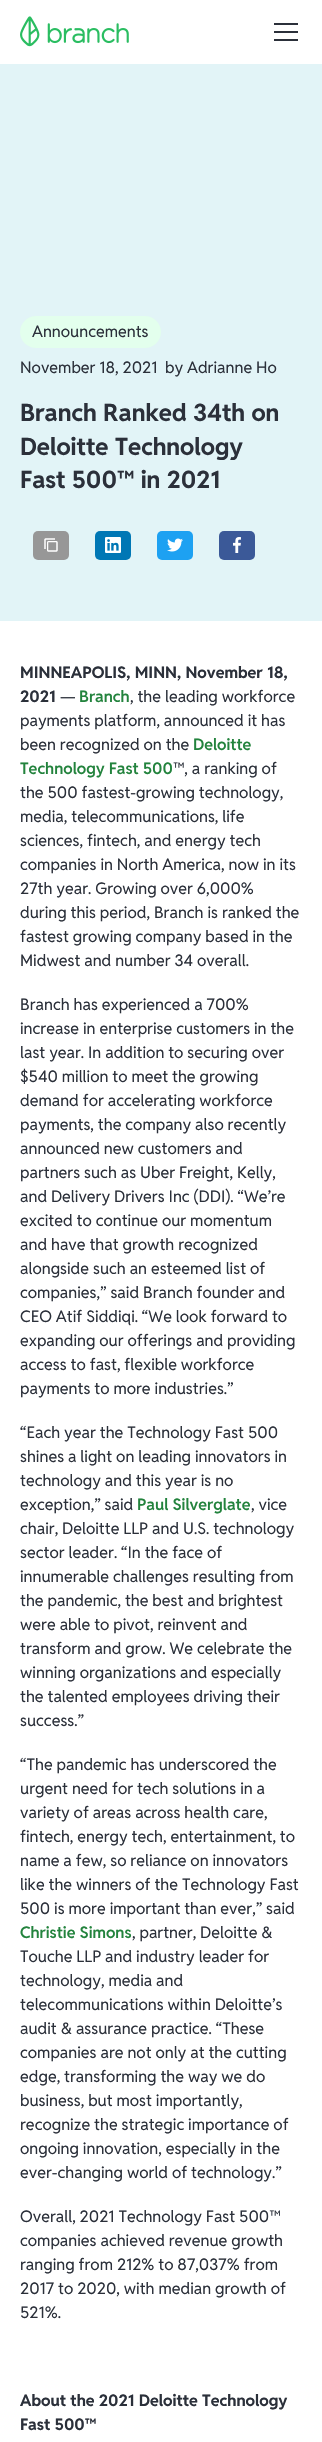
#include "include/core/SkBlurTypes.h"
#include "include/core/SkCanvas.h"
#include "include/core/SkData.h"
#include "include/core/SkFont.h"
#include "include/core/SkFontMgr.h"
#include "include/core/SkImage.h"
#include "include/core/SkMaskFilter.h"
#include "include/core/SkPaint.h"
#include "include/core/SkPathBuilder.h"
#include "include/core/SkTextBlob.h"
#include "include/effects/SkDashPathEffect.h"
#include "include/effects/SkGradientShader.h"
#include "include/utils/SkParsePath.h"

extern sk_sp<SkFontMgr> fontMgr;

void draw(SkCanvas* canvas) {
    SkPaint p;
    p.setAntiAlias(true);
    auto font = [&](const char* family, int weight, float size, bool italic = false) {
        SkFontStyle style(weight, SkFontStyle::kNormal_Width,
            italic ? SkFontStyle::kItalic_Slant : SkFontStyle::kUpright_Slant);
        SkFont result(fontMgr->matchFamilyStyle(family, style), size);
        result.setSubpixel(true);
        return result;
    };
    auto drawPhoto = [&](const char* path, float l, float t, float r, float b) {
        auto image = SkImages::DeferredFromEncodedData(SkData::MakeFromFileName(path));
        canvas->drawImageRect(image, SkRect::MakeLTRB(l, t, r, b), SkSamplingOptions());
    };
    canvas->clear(0xFFFFFFFF);
    drawPhoto("media/1.png", 20, 16, 129, 47);
    {
        const struct { float l, t, r, b; SkColor color; } items[] = {
            {274, 23, 298, 25, 0xFF2B303A},
            {274, 31, 298, 33, 0xFF2B303A},
            {274, 39, 298, 41, 0xFF2B303A},
            {0, 64, 322, 621, 0xFFE2F4F7},
        };
        for (auto [l, t, r, b, color] : items) {
            p.setColor(color);
            canvas->drawRect(SkRect::MakeLTRB(l, t, r, b), p);
        }
    }
    p.setColor(0xFFE3FFED);
    canvas->drawRoundRect(SkRect::MakeLTRB(20, 316, 161, 348), 16, 16, p);
    auto font1 = font("Reddit Sans", 400, 16);
    p.setColor(0xFF2B303A);
    {
        const struct { const char* s; float x, y; } items[] = {
            {"Announcements", 32, 337},
            {"November 18, 2021", 20, 373},
            {"by Adrianne Ho", 165, 373},
        };
        for (auto [s, x, y] : items) {
            canvas->drawString(s, x, y, font1, p);
        }
    }
    auto font2 = font("Reddit Sans", 700, 24);
    {
        const struct { const char* s; float x, y; } items[] = {
            {"Branch Ranked 34th on", 20, 421},
            {"Deloitte Technology", 20, 455},
            {"Fast 500™ in 2021", 20, 488},
        };
        for (auto [s, x, y] : items) {
            canvas->drawString(s, x, y, font2, p);
        }
    }
    p.setColor(0xFF979797);
    canvas->drawRoundRect(SkRect::MakeLTRB(33, 531, 69, 560), 5, 5, p);
    drawPhoto("media/2.png", 44, 538, 58, 552);
    p.setColor(0xFF0077B5);
    canvas->drawRoundRect(SkRect::MakeLTRB(95, 531, 131, 560), 5, 5, p);
    drawPhoto("media/3.png", 105, 537, 121, 553);
    p.setColor(0xFF1DA1F2);
    canvas->drawRoundRect(SkRect::MakeLTRB(157, 531, 193, 560), 5, 5, p);
    drawPhoto("media/4.png", 167, 538, 183, 552);
    p.setColor(0xFF3B5998);
    canvas->drawRoundRect(SkRect::MakeLTRB(219, 531, 255, 560), 5, 5, p);
    drawPhoto("media/5.png", 233, 537, 241, 553);
    auto font3 = font("Reddit Sans", 700, 16);
    p.setColor(0xFF2B303A);
    canvas->drawString("MINNEAPOLIS, MINN, November 18,", 20, 678, font3, p);
    canvas->drawString("2021", 20, 702, font3, p);
    canvas->drawString("—", 60, 702, font1, p);
    auto font4 = font("Reddit Sans", 600, 16);
    p.setColor(0xFF23833D);
    canvas->drawString("Branch", 79, 702, font4, p);
    p.setColor(0xFF2B303A);
    {
        const struct { const char* s; float x, y; } items[] = {
            {", the leading workforce", 130, 702},
            {"payments platform, announced it has", 20, 726},
            {"been recognized on the", 20, 750},
        };
        for (auto [s, x, y] : items) {
            canvas->drawString(s, x, y, font1, p);
        }
    }
    p.setColor(0xFF23833D);
    canvas->drawString("Deloitte", 193, 750, font4, p);
    canvas->drawString("Technology Fast 500", 20, 774, font4, p);
    p.setColor(0xFF2B303A);
    {
        const struct { const char* s; float x, y; } items[] = {
            {"™, a ranking of", 173, 774},
            {"the 500 fastest-growing technology,", 20, 798},
            {"media, telecommunications, life", 20, 822},
            {"sciences, fintech, and energy tech", 20, 846},
            {"companies in North America, now in its", 20, 870},
            {"27th year. Growing over 6,000%", 20, 894},
            {"during this period, Branch is ranked the", 20, 918},
            {"fastest growing company based in the", 20, 942},
            {"Midwest and number 34 overall.", 20, 966},
            {"Branch has experienced a 700%", 20, 1010},
            {"increase in enterprise customers in the", 20, 1034},
            {"last year. In addition to securing over", 20, 1058},
            {"$540 million to meet the growing", 20, 1082},
            {"demand for accelerating workforce", 20, 1106},
            {"payments, the company also recently", 20, 1130},
            {"announced new customers and", 20, 1154},
            {"partners such as Uber Freight, Kelly,", 20, 1178},
            {"and Delivery Drivers Inc (DDI). “We’re", 20, 1202},
            {"excited to continue our momentum", 20, 1226},
            {"and have that growth recognized", 20, 1250},
            {"alongside such an esteemed list of", 20, 1274},
            {"companies,” said Branch founder and", 20, 1298},
            {"CEO Atif Siddiqi. “We look forward to", 20, 1322},
            {"expanding our offerings and providing", 20, 1346},
            {"access to fast, flexible workforce", 20, 1370},
            {"payments to more industries.”", 20, 1394},
            {"“Each year the Technology Fast 500", 20, 1438},
            {"shines a light on leading innovators in", 20, 1462},
            {"technology and this year is no", 20, 1486},
            {"exception,” said", 20, 1510},
        };
        for (auto [s, x, y] : items) {
            canvas->drawString(s, x, y, font1, p);
        }
    }
    p.setColor(0xFF23833D);
    canvas->drawString("Paul Silverglate", 137, 1510, font4, p);
    p.setColor(0xFF2B303A);
    {
        const struct { const char* s; float x, y; } items[] = {
            {", vice", 251, 1510},
            {"chair, Deloitte LLP and U.S. technology", 20, 1534},
            {"sector leader. “In the face of", 20, 1558},
            {"innumerable challenges resulting from", 20, 1582},
            {"the pandemic, the best and brightest", 20, 1606},
            {"were able to pivot, reinvent and", 20, 1630},
            {"transform and grow. We celebrate the", 20, 1654},
            {"winning organizations and especially", 20, 1678},
            {"the talented employees driving their", 20, 1702},
            {"success.”", 20, 1726},
            {"“The pandemic has underscored the", 20, 1770},
            {"urgent need for tech solutions in a", 20, 1794},
            {"variety of areas across health care,", 20, 1818},
            {"fintech, energy tech, entertainment, to", 20, 1842},
            {"name a few, so reliance on innovators", 20, 1866},
            {"like the winners of the Technology Fast", 20, 1890},
            {"500 is more important than ever,” said", 20, 1914},
        };
        for (auto [s, x, y] : items) {
            canvas->drawString(s, x, y, font1, p);
        }
    }
    p.setColor(0xFF23833D);
    canvas->drawString("Christie Simons", 20, 1938, font4, p);
    p.setColor(0xFF2B303A);
    {
        const struct { const char* s; float x, y; } items[] = {
            {", partner, Deloitte &", 132, 1938},
            {"Touche LLP and industry leader for", 20, 1962},
            {"technology, media and", 20, 1986},
            {"telecommunications within Deloitte’s", 20, 2010},
            {"audit & assurance practice. “These", 20, 2034},
            {"companies are not only at the cutting", 20, 2058},
            {"edge, transforming the way we do", 20, 2082},
            {"business, but most importantly,", 20, 2106},
            {"recognize the strategic importance of", 20, 2130},
            {"ongoing innovation, especially in the", 20, 2154},
            {"ever-changing world of technology.”", 20, 2178},
            {"Overall, 2021 Technology Fast 500™", 20, 2222},
            {"companies achieved revenue growth", 20, 2246},
            {"ranging from 212% to 87,037% from", 20, 2270},
            {"2017 to 2020, with median growth of", 20, 2294},
            {"521%.", 20, 2318},
        };
        for (auto [s, x, y] : items) {
            canvas->drawString(s, x, y, font1, p);
        }
    }
    canvas->drawString("About the 2021 Deloitte Technology", 20, 2406, font3, p);
    canvas->drawString("Fast 500™", 20, 2430, font3, p);
}
